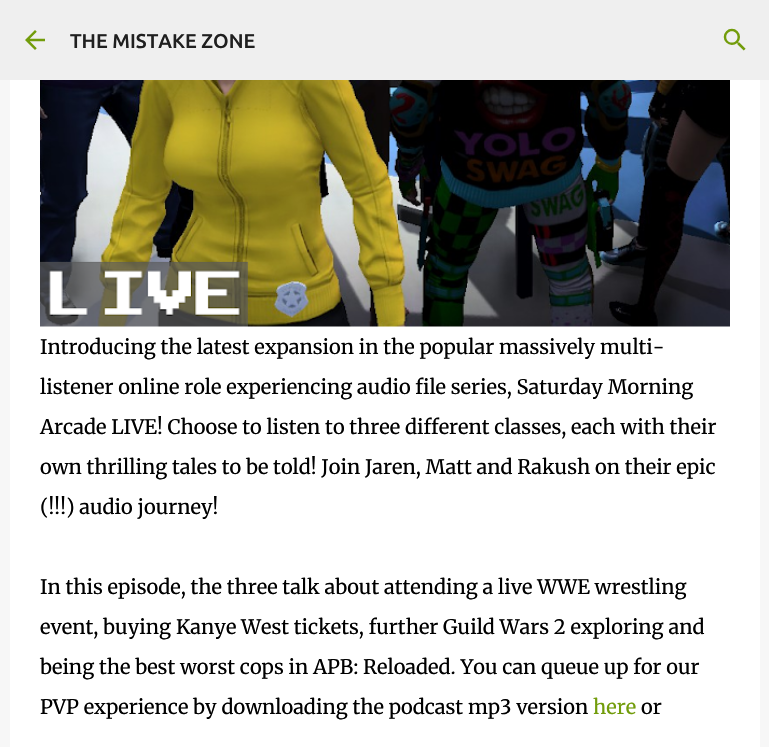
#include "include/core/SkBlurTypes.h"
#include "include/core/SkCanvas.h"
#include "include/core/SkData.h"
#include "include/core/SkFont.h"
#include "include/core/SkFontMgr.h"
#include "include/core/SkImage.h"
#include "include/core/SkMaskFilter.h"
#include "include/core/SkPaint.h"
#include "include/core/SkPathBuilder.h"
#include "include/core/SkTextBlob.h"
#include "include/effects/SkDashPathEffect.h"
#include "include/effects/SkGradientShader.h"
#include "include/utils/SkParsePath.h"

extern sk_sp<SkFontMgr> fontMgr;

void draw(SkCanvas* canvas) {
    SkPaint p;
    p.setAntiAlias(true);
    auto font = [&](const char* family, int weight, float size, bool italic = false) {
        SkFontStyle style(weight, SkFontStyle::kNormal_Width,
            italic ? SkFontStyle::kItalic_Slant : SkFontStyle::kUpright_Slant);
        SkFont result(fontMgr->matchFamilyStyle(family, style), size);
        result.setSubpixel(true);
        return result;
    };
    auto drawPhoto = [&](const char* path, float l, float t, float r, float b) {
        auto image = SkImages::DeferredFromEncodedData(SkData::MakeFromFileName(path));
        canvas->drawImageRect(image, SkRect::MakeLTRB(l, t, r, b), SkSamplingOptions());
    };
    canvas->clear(0xFFF7F7F7);
    p.setColor(0xFFEFEFEF);
    canvas->drawRect(SkRect::MakeLTRB(0, 0, 769, 80), p);
    drawPhoto("media/1.png", 25, 30, 45, 50);
    auto font1 = font("Ubuntu", 500, 20);
    p.setColor(0xFF1F1F1F);
    canvas->drawString("THE MISTAKE ZONE", 70, 48, font1, p);
    drawPhoto("media/2.png", 723, 28, 746, 51);
    p.setColor(0xFFFFFFFF);
    canvas->drawRect(SkRect::MakeLTRB(10, 80, 760, 747), p);
    drawPhoto("media/3.png", 40, 80, 730, 327);
    auto font2 = font("Merriweather", 300, 20);
    p.setColor(0xFF000000);
    {
        const struct { const char* s; float x, y; } items[] = {
            {"Introducing the latest expansion in the popular massively multi-", 40, 354},
            {"listener online role experiencing audio file series, Saturday Morning", 40, 394},
            {"Arcade LIVE! Choose to listen to three different classes, each with their", 40, 434},
            {"own thrilling tales to be told! Join Jaren, Matt and Rakush on their epic", 40, 474},
            {"(!!!) audio journey!", 40, 514},
            {"In this episode, the three talk about attending a live WWE wrestling", 40, 594},
            {"event, buying Kanye West tickets, further Guild Wars 2 exploring and", 40, 634},
            {"being the best worst cops in APB: Reloaded. You can queue up for our", 40, 674},
            {"PVP experience by downloading the podcast mp3 version", 40, 714},
        };
        for (auto [s, x, y] : items) {
            canvas->drawString(s, x, y, font2, p);
        }
    }
    p.setColor(0xFF729C0B);
    canvas->drawString("here", 593, 714, font2, p);
    p.setColor(0xFF000000);
    canvas->drawString("or", 641, 714, font2, p);
}
